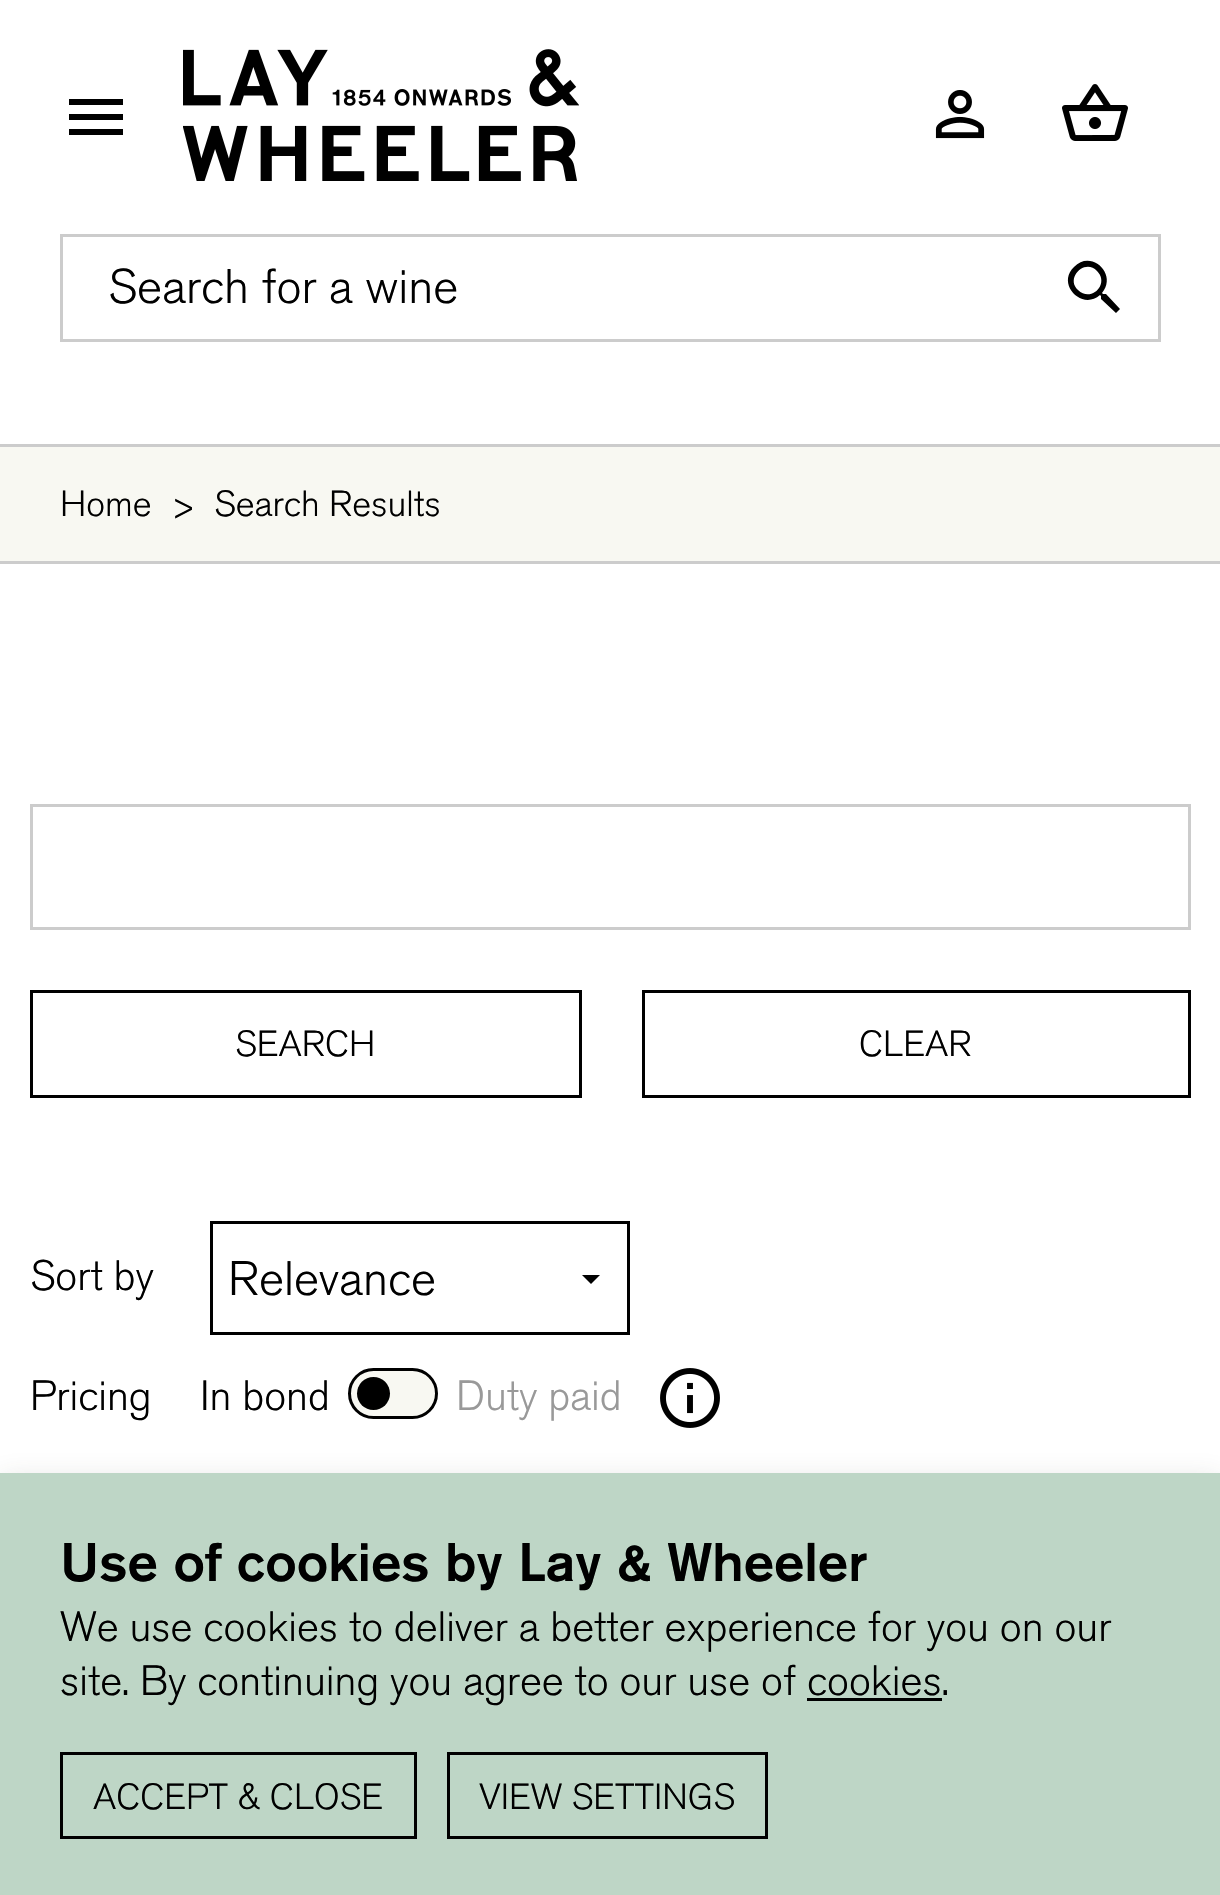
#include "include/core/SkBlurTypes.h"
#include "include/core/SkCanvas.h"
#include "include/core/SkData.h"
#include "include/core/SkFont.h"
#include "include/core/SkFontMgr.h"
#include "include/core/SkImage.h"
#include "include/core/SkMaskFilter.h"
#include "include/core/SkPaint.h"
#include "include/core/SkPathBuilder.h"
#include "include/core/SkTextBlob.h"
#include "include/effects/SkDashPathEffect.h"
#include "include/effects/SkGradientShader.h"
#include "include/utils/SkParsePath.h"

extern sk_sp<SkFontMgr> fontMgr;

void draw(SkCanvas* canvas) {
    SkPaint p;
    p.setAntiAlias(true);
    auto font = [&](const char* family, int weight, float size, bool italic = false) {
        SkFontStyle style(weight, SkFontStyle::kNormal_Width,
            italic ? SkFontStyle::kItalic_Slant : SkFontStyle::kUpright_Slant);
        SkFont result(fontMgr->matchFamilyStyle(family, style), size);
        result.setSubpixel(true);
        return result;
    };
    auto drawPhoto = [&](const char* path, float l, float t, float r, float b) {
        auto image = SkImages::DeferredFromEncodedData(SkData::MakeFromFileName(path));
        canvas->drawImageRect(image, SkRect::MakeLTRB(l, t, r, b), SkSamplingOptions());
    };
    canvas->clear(0xFFFFFFFF);
    p.setColor(0xFF000000);
    canvas->drawPath(SkPathBuilder().moveTo(69, 99).lineTo(123, 99).lineTo(123, 105).lineTo(69, 105).close().moveTo(69, 120).lineTo(69, 114).lineTo(123, 114).lineTo(123, 120).close().moveTo(69, 135).lineTo(69, 129).lineTo(123, 129).lineTo(123, 135).close().detach(), p);
    drawPhoto("media/1.png", 183, 49, 579, 181);
    drawPhoto("media/2.png", 935, 90, 985, 139);
    drawPhoto("media/3.png", 1062, 84, 1128, 141);
    p.setStyle(SkPaint::kStroke_Style);
    p.setStrokeWidth(3);
    p.setColor(0xFFCCCCCC);
    canvas->drawRect(SkRect::MakeLTRB(61.5f, 235.5f, 1159.5f, 340.5f), p);
    auto font1 = font("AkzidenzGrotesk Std", 300, 48);
    p.setStyle(SkPaint::kFill_Style);
    p.setColor(0xFF000000);
    canvas->drawString("Search for a wine", 108, 303, font1, p);
    canvas->drawPath(SkPathBuilder().moveTo(1078, 290).cubicTo(1091, 303, 1110, 284, 1097, 271).cubicTo(1085, 258, 1065, 278, 1078, 290).close().moveTo(1106, 294).lineTo(1120, 309).lineTo(1116, 313).lineTo(1101, 299).lineTo(1101, 296).lineTo(1100, 295).cubicTo(1082, 311, 1056, 284, 1074, 267).cubicTo(1091, 249, 1118, 274, 1102, 293).lineTo(1103, 294).close().detach(), p);
    {
        const struct { float l, t, r, b; SkColor color; } items[] = {
            {0, 447, 1220, 561, 0xFFF8F8F2},
            {0, 444, 1220, 447, 0xFFCCCCCC},
            {0, 561, 1220, 564, 0xFFCCCCCC},
        };
        for (auto [l, t, r, b, color] : items) {
            p.setColor(color);
            canvas->drawRect(SkRect::MakeLTRB(l, t, r, b), p);
        }
    }
    auto font2 = font("AkzidenzGrotesk Std", 300, 36);
    p.setColor(0xFF000000);
    {
        const struct { const char* s; float x, y; } items[] = {
            {"Home", 60, 516},
            {">", 170, 519},
            {"Search Results", 214, 516},
        };
        for (auto [s, x, y] : items) {
            canvas->drawString(s, x, y, font2, p);
        }
    }
    p.setStyle(SkPaint::kStroke_Style);
    p.setColor(0xFFCCCCCC);
    canvas->drawRect(SkRect::MakeLTRB(31.5f, 805.5f, 1189.5f, 928.5f), p);
    p.setColor(0xFF000000);
    canvas->drawRect(SkRect::MakeLTRB(31.5f, 991.5f, 580.5f, 1096.5f), p);
    p.setStyle(SkPaint::kFill_Style);
    canvas->drawString("SEARCH", 235, 1056, font2, p);
    p.setStyle(SkPaint::kStroke_Style);
    canvas->drawRect(SkRect::MakeLTRB(643.5f, 991.5f, 1189.5f, 1096.5f), p);
    p.setStyle(SkPaint::kFill_Style);
    canvas->drawString("CLEAR", 859, 1056, font2, p);
    auto font3 = font("AkzidenzGrotesk Std", 300, 42);
    canvas->drawString("Sort by", 30, 1290, font3, p);
    canvas->drawPath(SkPathBuilder().moveTo(600, 1275).lineTo(591, 1284).lineTo(582, 1275).close().detach(), p);
    p.setStyle(SkPaint::kStroke_Style);
    canvas->drawRect(SkRect::MakeLTRB(211.5f, 1222.5f, 628.5f, 1333.5f), p);
    p.setStyle(SkPaint::kFill_Style);
    canvas->drawString("Relevance", 228, 1295, font1, p);
    canvas->drawString("Pricing", 30, 1410, font3, p);
    canvas->drawString("In bond", 200, 1410, font3, p);
    p.setColor(0xFFF8F8F2);
    canvas->drawRoundRect(SkRect::MakeLTRB(349.5f, 1369.5f, 436.5f, 1417.5f), 24, 24, p);
    p.setStyle(SkPaint::kStroke_Style);
    p.setColor(0xFF000000);
    canvas->drawRoundRect(SkRect::MakeLTRB(349.5f, 1369.5f, 436.5f, 1417.5f), 24, 24, p);
    p.setStyle(SkPaint::kFill_Style);
    canvas->drawCircle(373.5f, 1393.5f, 16.5f, p);
    p.setColor(0xFF999999);
    canvas->drawString("Duty paid", 456, 1410, font3, p);
    drawPhoto("media/4.png", 660, 1368, 720, 1428);
    p.setColor(0x26423D2D);
    p.setMaskFilter(SkMaskFilter::MakeBlur(kNormal_SkBlurStyle, 13.5f));
    canvas->drawRect(SkRect::MakeLTRB(0, 1479, 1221, 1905), p);
    p.setMaskFilter(nullptr);
    p.setColor(0xFFBED6C6);
    canvas->drawRect(SkRect::MakeLTRB(0, 1473, 1220, 1895), p);
    auto font4 = font("AkzidenzGrotesk Std", 500, 54);
    p.setColor(0xFF000000);
    canvas->drawString("Use of cookies by Lay & Wheeler", 60, 1581, font4, p);
    canvas->drawString("We use cookies to deliver a better experience for you on our", 60, 1641, font3, p);
    canvas->drawString("site. By continuing you agree to our use of cookies.", 60, 1695, font3, p);
    canvas->drawRect(SkRect::MakeLTRB(807, 1698, 942, 1701), p);
    p.setStyle(SkPaint::kStroke_Style);
    canvas->drawRect(SkRect::MakeLTRB(61.5f, 1753.5f, 415.5f, 1837.5f), p);
    p.setStyle(SkPaint::kFill_Style);
    canvas->drawString("ACCEPT & CLOSE", 93, 1809, font2, p);
    p.setStyle(SkPaint::kStroke_Style);
    canvas->drawRect(SkRect::MakeLTRB(448.5f, 1753.5f, 766.5f, 1837.5f), p);
    p.setStyle(SkPaint::kFill_Style);
    canvas->drawString("VIEW SETTINGS", 479, 1809, font2, p);
}
